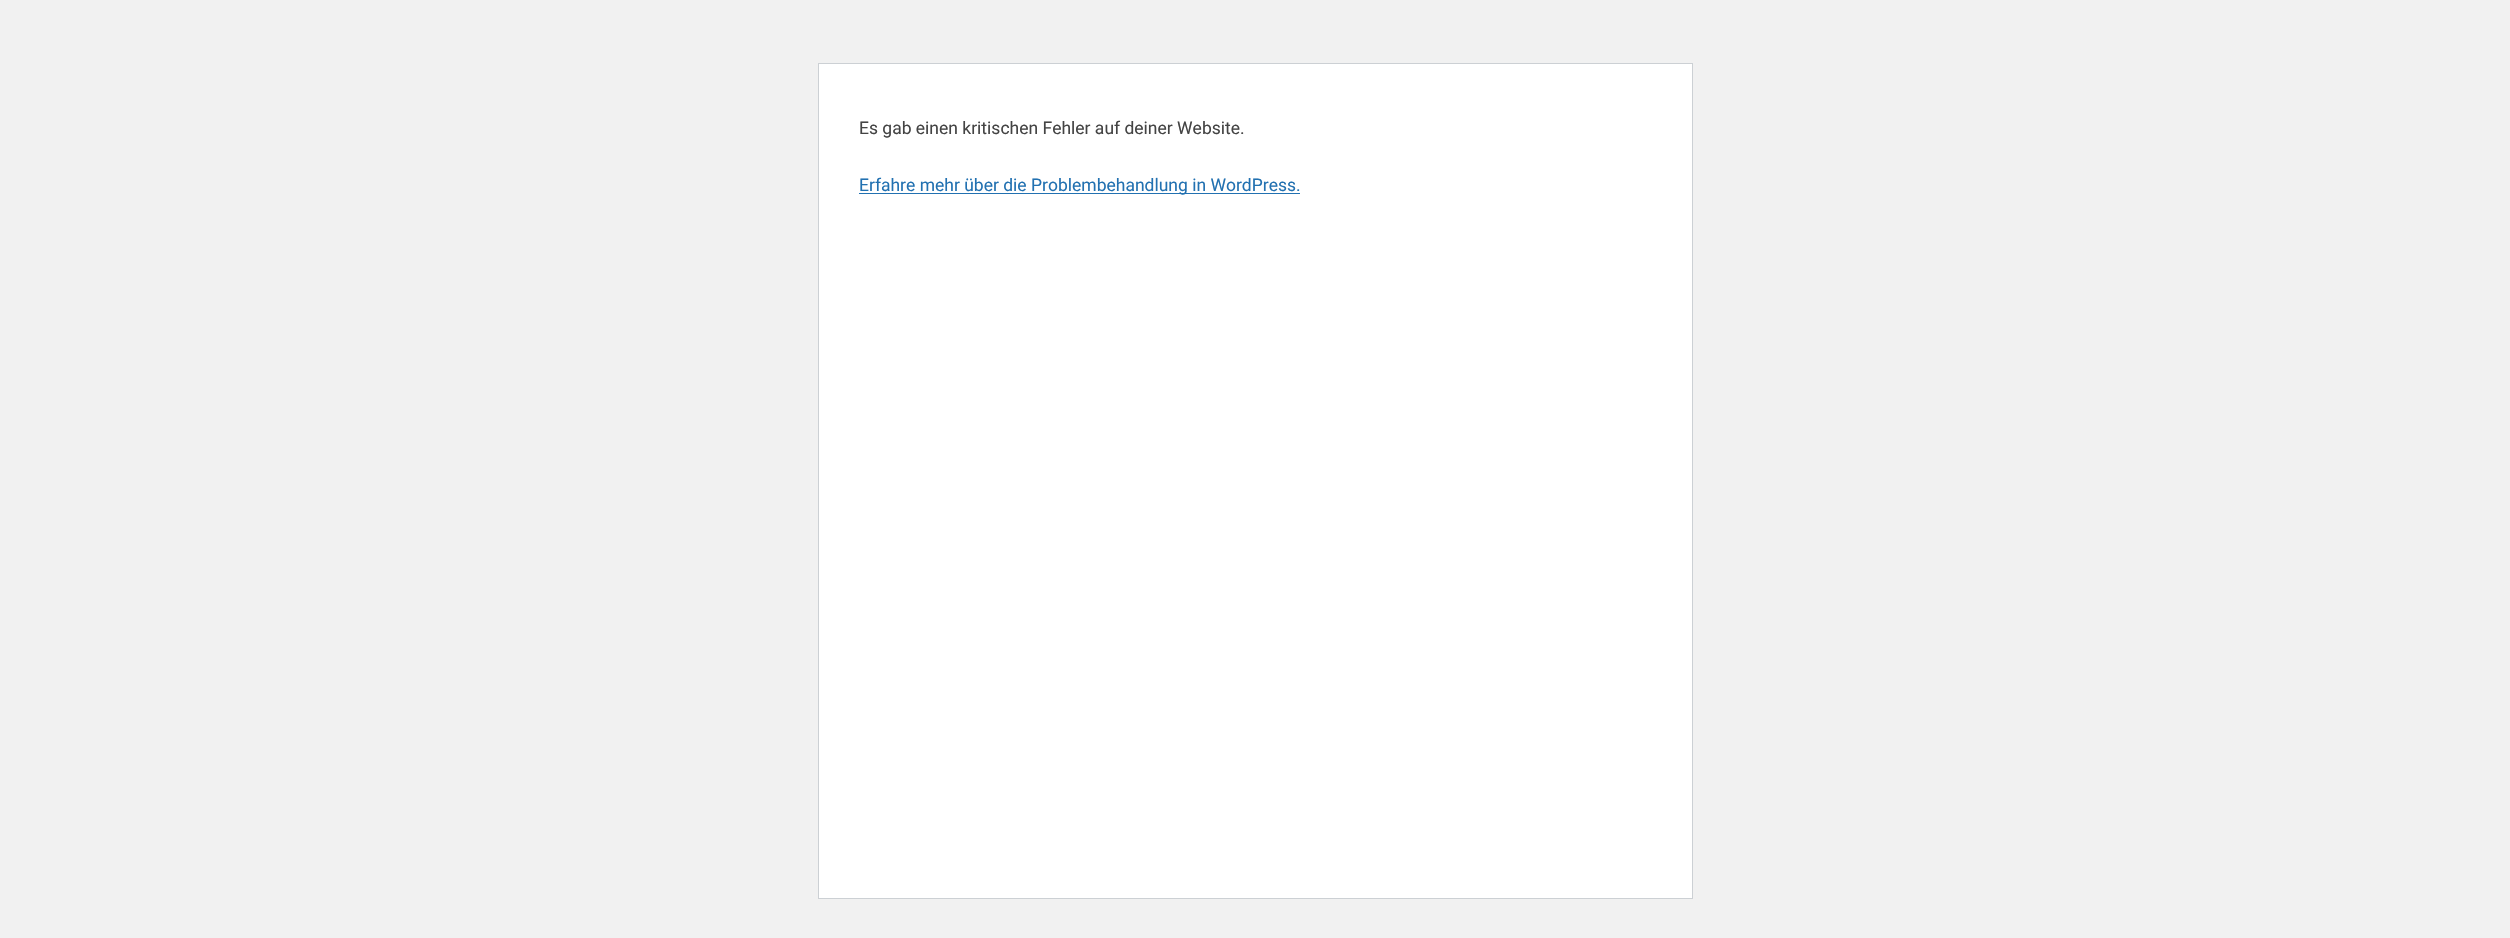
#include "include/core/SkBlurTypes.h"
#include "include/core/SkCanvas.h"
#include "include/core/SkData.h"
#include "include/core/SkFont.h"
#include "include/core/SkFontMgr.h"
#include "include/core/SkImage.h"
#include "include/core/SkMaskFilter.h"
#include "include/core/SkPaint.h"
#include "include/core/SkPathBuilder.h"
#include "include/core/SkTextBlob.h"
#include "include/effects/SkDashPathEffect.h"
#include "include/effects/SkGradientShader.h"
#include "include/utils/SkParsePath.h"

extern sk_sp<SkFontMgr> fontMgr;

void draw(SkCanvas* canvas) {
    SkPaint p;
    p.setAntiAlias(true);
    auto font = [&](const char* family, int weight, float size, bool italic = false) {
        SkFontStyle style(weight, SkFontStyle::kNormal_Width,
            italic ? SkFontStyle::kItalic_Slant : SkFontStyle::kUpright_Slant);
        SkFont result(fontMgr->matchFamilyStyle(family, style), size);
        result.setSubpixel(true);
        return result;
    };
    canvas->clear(0xFFF1F1F1);
    p.setColor(0xFFFFFFFF);
    canvas->drawRect(SkRect::MakeLTRB(818.5f, 63.5f, 1692.5f, 898.5f), p);
    p.setStyle(SkPaint::kStroke_Style);
    p.setStrokeWidth(1);
    p.setColor(0xFFCCD0D4);
    canvas->drawRect(SkRect::MakeLTRB(818.5f, 63.5f, 1692.5f, 898.5f), p);
    auto font1 = font("Roboto", 400, 17.5f);
    p.setStyle(SkPaint::kFill_Style);
    p.setColor(0xFF444444);
    canvas->drawString("Es gab einen kritischen Fehler auf deiner Website.", 859, 134, font1, p);
    p.setColor(0xFF2271B1);
    canvas->drawRect(SkRect::MakeLTRB(859, 193, 1300, 194), p);
    canvas->drawString("Erfahre mehr über die Problembehandlung in WordPress.", 859, 191, font1, p);
}
